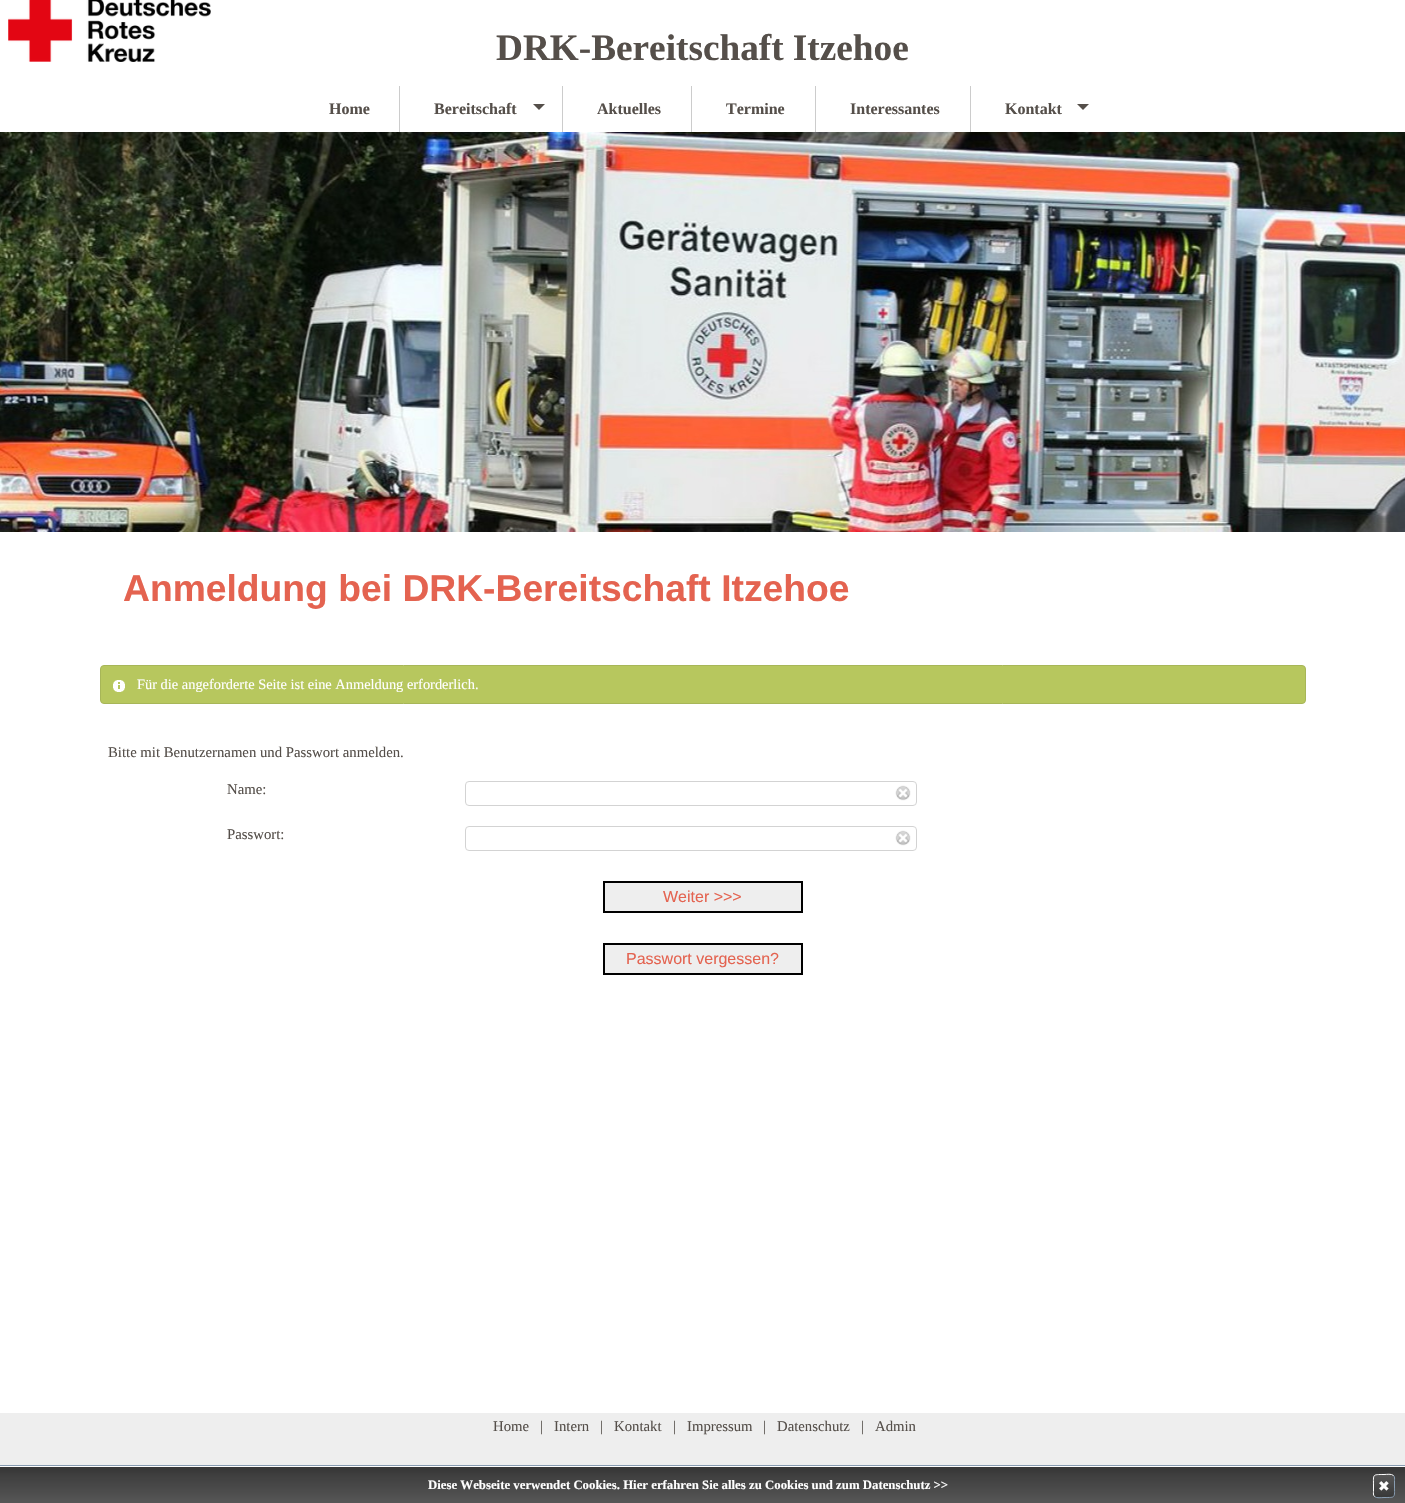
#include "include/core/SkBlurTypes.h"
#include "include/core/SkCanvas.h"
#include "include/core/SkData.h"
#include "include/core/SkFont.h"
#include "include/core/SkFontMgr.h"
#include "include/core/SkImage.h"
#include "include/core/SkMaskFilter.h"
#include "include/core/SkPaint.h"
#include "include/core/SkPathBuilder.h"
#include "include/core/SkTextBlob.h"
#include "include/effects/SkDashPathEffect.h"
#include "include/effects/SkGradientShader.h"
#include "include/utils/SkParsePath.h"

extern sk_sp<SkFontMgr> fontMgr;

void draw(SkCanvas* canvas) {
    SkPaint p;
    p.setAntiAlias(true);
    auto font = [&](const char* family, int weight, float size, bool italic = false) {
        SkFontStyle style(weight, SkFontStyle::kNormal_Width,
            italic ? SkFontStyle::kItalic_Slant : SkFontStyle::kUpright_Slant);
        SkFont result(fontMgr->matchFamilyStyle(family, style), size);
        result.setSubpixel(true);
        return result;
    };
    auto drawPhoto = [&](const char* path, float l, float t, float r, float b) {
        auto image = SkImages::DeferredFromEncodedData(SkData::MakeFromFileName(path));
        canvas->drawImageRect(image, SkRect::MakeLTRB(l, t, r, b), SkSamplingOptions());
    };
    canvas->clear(0xFFFFFFFF);
    drawPhoto("media/1.png", 8, 0, 211, 62);
    auto font1 = font("Liberation Serif", 700, 37.25f);
    p.setColor(0xFF554F4A);
    canvas->drawString("DRK-Bereitschaft Itzehoe", 496, 60, font1, p);
    p.setColor(0xFFCCCCCC);
    canvas->drawRect(SkRect::MakeLTRB(399, 86, 400, 132), p);
    auto font2 = font("Liberation Serif", 700, 16);
    p.setColor(0xFF554F4A);
    canvas->drawString("Home", 329, 114, font2, p);
    p.setColor(0xFFCCCCCC);
    canvas->drawRect(SkRect::MakeLTRB(562, 86, 563, 132), p);
    p.setColor(0xFF554F4A);
    canvas->drawString("Bereitschaft", 434, 114, font2, p);
    canvas->drawPath(SkPathBuilder().moveTo(533, 104).lineTo(545, 104).lineTo(539, 110).close().detach(), p);
    p.setColor(0xFFCCCCCC);
    canvas->drawRect(SkRect::MakeLTRB(691, 86, 692, 132), p);
    p.setColor(0xFF554F4A);
    canvas->drawString("Aktuelles", 597, 114, font2, p);
    p.setColor(0xFFCCCCCC);
    canvas->drawRect(SkRect::MakeLTRB(815, 86, 816, 132), p);
    p.setColor(0xFF554F4A);
    canvas->drawString("Termine", 726, 114, font2, p);
    p.setColor(0xFFCCCCCC);
    canvas->drawRect(SkRect::MakeLTRB(970, 86, 971, 132), p);
    p.setColor(0xFF554F4A);
    canvas->drawString("Interessantes", 850, 114, font2, p);
    canvas->drawString("Kontakt", 1005, 114, font2, p);
    canvas->drawPath(SkPathBuilder().moveTo(1077, 104).lineTo(1089, 104).lineTo(1083, 110).close().detach(), p);
    drawPhoto("media/2.png", 0, 132, 1405, 532);
    auto font3 = font("Liberation Sans", 700, 37.25f);
    p.setColor(0xFFE46350);
    canvas->drawString("Anmeldung bei DRK-Bereitschaft Itzehoe", 123, 601, font3, p);
    p.setColor(0xFFB7C75E);
    canvas->drawRoundRect(SkRect::MakeLTRB(100.5f, 665.5f, 1305.5f, 703.5f), 3.5f, 3.5f, p);
    p.setStyle(SkPaint::kStroke_Style);
    p.setStrokeWidth(1);
    p.setColor(0xFFA7B658);
    canvas->drawRoundRect(SkRect::MakeLTRB(100.5f, 665.5f, 1305.5f, 703.5f), 3.5f, 3.5f, p);
    drawPhoto("media/3.png", 113, 680, 125, 692);
    auto font4 = font("Liberation Serif", 400, 14.4f);
    p.setStyle(SkPaint::kFill_Style);
    p.setColor(0xFFFFFFFF);
    canvas->drawString("Für die angeforderte Seite ist eine Anmeldung erforderlich.", 137, 689, font4, p);
    auto font5 = font("Liberation Serif", 400, 14.75f);
    p.setColor(0xFF554F4A);
    canvas->drawString("Bitte mit Benutzernamen und Passwort anmelden.", 108, 757, font5, p);
    canvas->drawString("Name:", 227, 794, font5, p);
    drawPhoto("media/4.png", 895, 785, 911, 801);
    p.setStyle(SkPaint::kStroke_Style);
    p.setColor(0xFFD3D3D3);
    canvas->drawRoundRect(SkRect::MakeLTRB(465.5f, 781.5f, 916.5f, 805.5f), 3.5f, 3.5f, p);
    p.setStyle(SkPaint::kFill_Style);
    p.setColor(0xFF554F4A);
    canvas->drawString("Passwort:", 227, 839, font5, p);
    drawPhoto("media/4.png", 895, 830, 911, 846);
    p.setStyle(SkPaint::kStroke_Style);
    p.setColor(0xFFD3D3D3);
    canvas->drawRoundRect(SkRect::MakeLTRB(465.5f, 826.5f, 916.5f, 850.5f), 3.5f, 3.5f, p);
    p.setStyle(SkPaint::kFill_Style);
    p.setColor(0xFFEEEEEE);
    canvas->drawRect(SkRect::MakeLTRB(604, 882, 802, 912), p);
    p.setStyle(SkPaint::kStroke_Style);
    p.setStrokeWidth(2);
    p.setColor(0xFF000000);
    canvas->drawRect(SkRect::MakeLTRB(604, 882, 802, 912), p);
    auto font6 = font("Liberation Sans", 400, 16);
    p.setStyle(SkPaint::kFill_Style);
    p.setColor(0xFFE46350);
    canvas->drawString("Weiter >>>", 663, 902, font6, p);
    p.setColor(0xFFEEEEEE);
    canvas->drawRect(SkRect::MakeLTRB(604, 944, 802, 974), p);
    p.setStyle(SkPaint::kStroke_Style);
    p.setColor(0xFF000000);
    canvas->drawRect(SkRect::MakeLTRB(604, 944, 802, 974), p);
    p.setStyle(SkPaint::kFill_Style);
    p.setColor(0xFFE46350);
    canvas->drawString("Passwort vergessen?", 626, 964, font6, p);
    p.setColor(0xFFEEEEEE);
    canvas->drawRect(SkRect::MakeLTRB(0, 1413, 1405, 1473), p);
    p.setColor(0xFF554F4A);
    {
        const struct { const char* s; float x, y; } items[] = {
            {"Home", 493, 1431},
            {"|", 540, 1431},
            {"Intern", 554, 1431},
            {"|", 600, 1431},
            {"Kontakt", 614, 1431},
            {"|", 673, 1431},
            {"Impressum", 687, 1431},
            {"|", 763, 1431},
            {"Datenschutz", 777, 1431},
            {"|", 861, 1431},
            {"Admin", 875, 1431},
        };
        for (auto [s, x, y] : items) {
            canvas->drawString(s, x, y, font5, p);
        }
    }
    {
        const SkColor colors[] = {0xE6222222, 0xE6444444};
        const float stops[] = {0, 1};
        const SkPoint ends[] = {{703, 1467}, {703, 1503}};
        p.setShader(SkGradientShader::MakeLinear(ends, colors, stops, 2, SkTileMode::kClamp));
        p.setAlpha(255);
    }
    canvas->drawRect(SkRect::MakeLTRB(0, 1467, 1405, 1503), p);
    p.setShader(nullptr);
    p.setColor(0xFFFDFDFD);
    canvas->drawRect(SkRect::MakeLTRB(0, 1466, 1405, 1467), p);
    p.setStyle(SkPaint::kStroke_Style);
    p.setStrokeWidth(1);
    p.setColor(0xFF879BB0);
    canvas->drawRect(SkRect::MakeLTRB(-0.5f, 1465.5f, 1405.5f, 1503.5f), p);
    auto font7 = font("Liberation Serif", 700, 12.8f);
    p.setStyle(SkPaint::kFill_Style);
    p.setColor(0xFFFFFFFF);
    canvas->drawString("Diese Webseite verwendet Cookies. Hier erfahren Sie alles zu Cookies und zum Datenschutz >>", 428, 1489, font7, p);
    canvas->save();
    canvas->clipPath(SkPathBuilder().moveTo(1377, 1474).lineTo(1391, 1474).cubicTo(1393, 1474, 1395, 1476, 1395, 1478).lineTo(1395, 1494).cubicTo(1395, 1496, 1393, 1498, 1391, 1498).lineTo(1377, 1498).cubicTo(1375, 1498, 1373, 1496, 1373, 1494).lineTo(1373, 1478).cubicTo(1373, 1476, 1375, 1474, 1377, 1474).close().detach(), true);
    {
        const SkColor colors[] = {0xFF575757, 0xFF383838};
        const float stops[] = {0, 1};
        const SkPoint ends[] = {{1384, 1453}, {1384, 1475}};
        p.setShader(SkGradientShader::MakeLinear(ends, colors, stops, 2, SkTileMode::kClamp));
        p.setAlpha(255);
    }
    canvas->drawRect(SkRect::MakeLTRB(1373, 1474, 1395, 1475), p);
    {
        const SkColor colors[] = {0xFF575757, 0xFF383838};
        const float stops[] = {0, 1};
        const SkPoint ends[] = {{1384, 1475}, {1384, 1497}};
        p.setShader(SkGradientShader::MakeLinear(ends, colors, stops, 2, SkTileMode::kClamp));
        p.setAlpha(255);
    }
    canvas->drawRect(SkRect::MakeLTRB(1373, 1475, 1395, 1497), p);
    {
        const SkColor colors[] = {0xFF575757, 0xFF383838};
        const float stops[] = {0, 1};
        const SkPoint ends[] = {{1384, 1497}, {1384, 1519}};
        p.setShader(SkGradientShader::MakeLinear(ends, colors, stops, 2, SkTileMode::kClamp));
        p.setAlpha(255);
    }
    canvas->drawRect(SkRect::MakeLTRB(1373, 1497, 1395, 1498), p);
    canvas->restore();
    p.setStyle(SkPaint::kStroke_Style);
    p.setShader(nullptr);
    p.setColor(0xFF889DB2);
    canvas->drawPath(SkPathBuilder().moveTo(1393.5f, 1475.5f).cubicTo(1395, 1477, 1394.5f, 1479, 1394.5f, 1480.5f).lineTo(1394.5f, 1486).cubicTo(1394.5f, 1498, 1396, 1497.5f, 1384, 1497.5f).cubicTo(1381.5f, 1497.5f, 1376.5f, 1498.5f, 1374.5f, 1496.5f).detach(), p);
    p.setColor(0xFFFFFFFF);
    canvas->drawPath(SkPathBuilder().moveTo(1374.5f, 1496.5f).cubicTo(1373, 1495, 1373.5f, 1493, 1373.5f, 1491.5f).lineTo(1373.5f, 1486).cubicTo(1373.5f, 1474, 1372, 1474.5f, 1384, 1474.5f).cubicTo(1386.5f, 1474.5f, 1391.5f, 1473.5f, 1393.5f, 1475.5f).detach(), p);
    auto font8 = font("DejaVu Sans", 400, 14);
    p.setStyle(SkPaint::kFill_Style);
    canvas->drawString("✖", 1378, 1491, font8, p);
}
